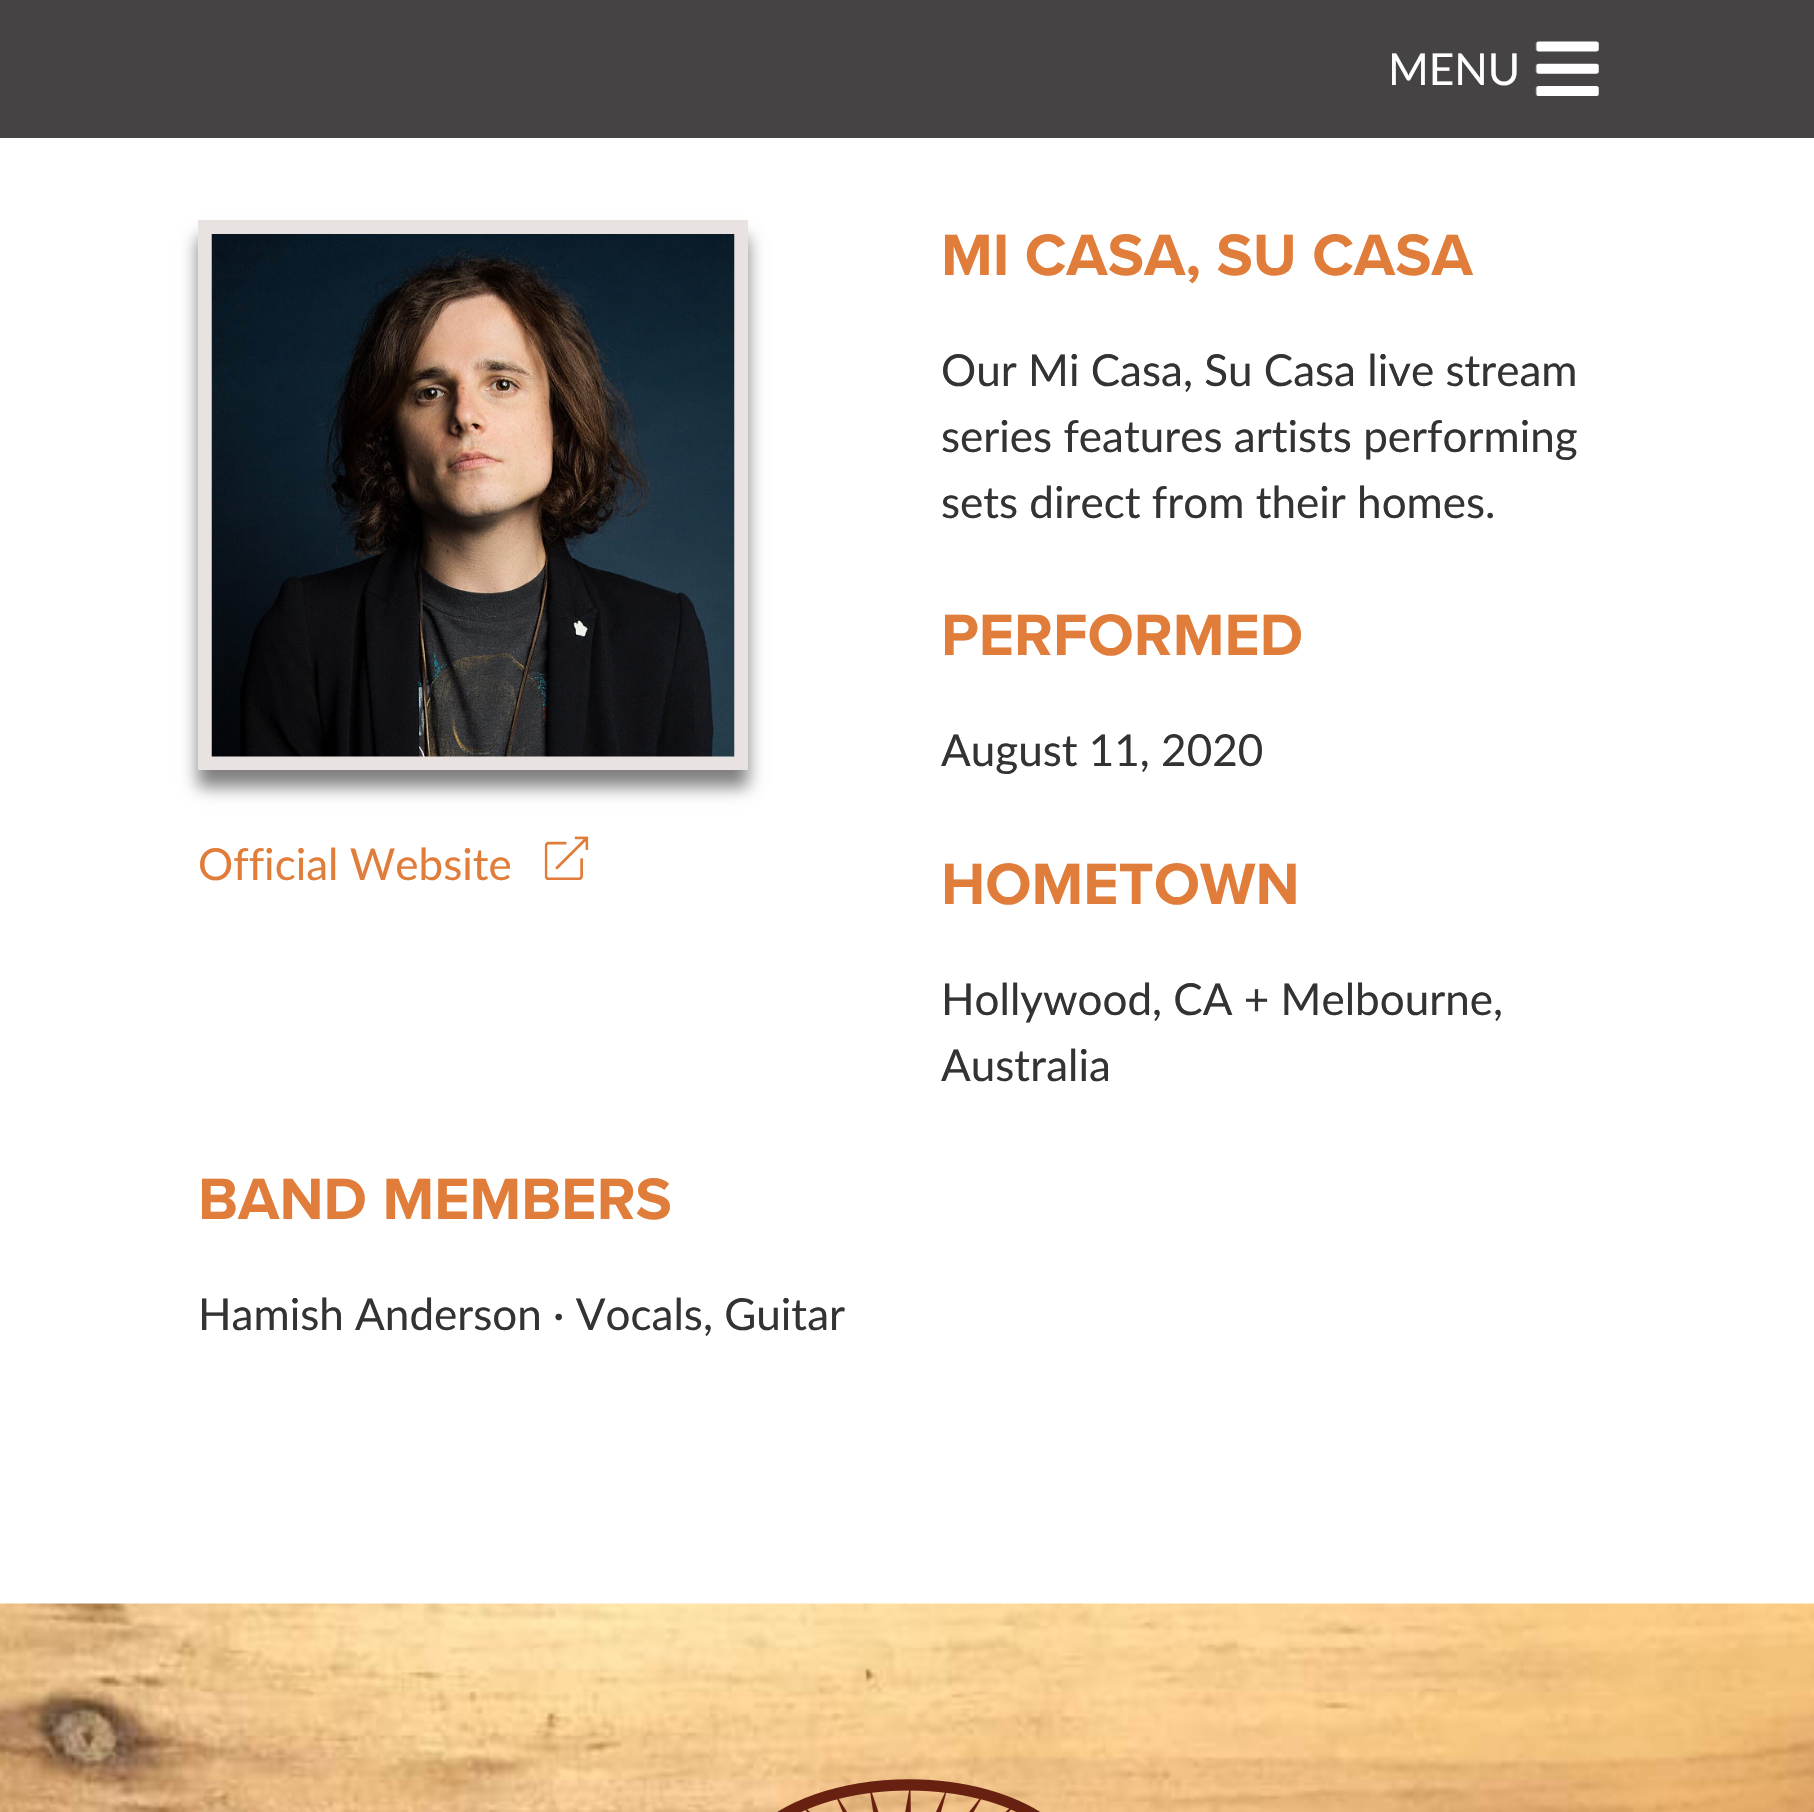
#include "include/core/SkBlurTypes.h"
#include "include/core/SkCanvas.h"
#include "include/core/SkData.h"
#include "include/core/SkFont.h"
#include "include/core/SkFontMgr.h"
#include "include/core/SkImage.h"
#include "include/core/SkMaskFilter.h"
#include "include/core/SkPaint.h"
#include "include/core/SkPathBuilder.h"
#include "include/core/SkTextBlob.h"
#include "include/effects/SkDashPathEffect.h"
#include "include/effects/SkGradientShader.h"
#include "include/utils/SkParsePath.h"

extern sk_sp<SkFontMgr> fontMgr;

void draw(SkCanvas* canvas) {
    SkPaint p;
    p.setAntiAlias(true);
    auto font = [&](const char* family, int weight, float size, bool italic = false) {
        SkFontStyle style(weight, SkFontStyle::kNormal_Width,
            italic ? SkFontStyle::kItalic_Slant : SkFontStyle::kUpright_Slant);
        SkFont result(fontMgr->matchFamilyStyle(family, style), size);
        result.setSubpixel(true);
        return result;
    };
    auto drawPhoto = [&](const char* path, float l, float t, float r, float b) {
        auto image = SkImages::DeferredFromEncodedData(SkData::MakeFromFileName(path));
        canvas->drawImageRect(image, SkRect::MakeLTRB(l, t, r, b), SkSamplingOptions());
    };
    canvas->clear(0xFFFFFFFF);
    p.setColor(0xFF454344);
    canvas->drawRect(SkRect::MakeLTRB(0, 0, 1814, 138), p);
    auto font1 = font("Lato", 400, 44);
    p.setColor(0xFFFFFFFF);
    canvas->drawString("MENU", 1388, 85, font1, p);
    drawPhoto("media/1.png", 1535, 41, 1599, 96);
    p.setColor(0x80000000);
    p.setMaskFilter(SkMaskFilter::MakeBlur(kNormal_SkBlurStyle, 8));
    canvas->drawRect(SkRect::MakeLTRB(198, 237, 748, 787), p);
    p.setMaskFilter(nullptr);
    p.setStyle(SkPaint::kStroke_Style);
    p.setStrokeWidth(14);
    p.setColor(0xFFE8E3E0);
    canvas->drawRect(SkRect::MakeLTRB(205, 227, 741, 763), p);
    drawPhoto("media/2.png", 211, 234, 735, 757);
    p.setStyle(SkPaint::kFill_Style);
    p.setColor(0xFFE17D3B);
    canvas->drawString("Official Website", 198, 880, font1, p);
    drawPhoto("media/3.png", 544, 836, 589, 880);
    auto font2 = font("Proxima Nova", 700, 60.5f);
    canvas->drawString("MI CASA, SU CASA", 941, 275, font2, p);
    p.setColor(0xFF333333);
    {
        const struct { const char* s; float x, y; } items[] = {
            {"Our Mi Casa, Su Casa live stream", 941, 386},
            {"series features artists performing", 941, 452},
            {"sets direct from their homes.", 941, 518},
        };
        for (auto [s, x, y] : items) {
            canvas->drawString(s, x, y, font1, p);
        }
    }
    p.setColor(0xFFE17D3B);
    canvas->drawString("PERFORMED", 941, 655, font2, p);
    p.setColor(0xFF333333);
    canvas->drawString("August 11, 2020", 941, 766, font1, p);
    p.setColor(0xFFE17D3B);
    canvas->drawString("HOMETOWN", 941, 904, font2, p);
    p.setColor(0xFF333333);
    canvas->drawString("Hollywood, CA + Melbourne,", 941, 1015, font1, p);
    canvas->drawString("Australia", 941, 1081, font1, p);
    p.setColor(0xFFE17D3B);
    canvas->drawString("BAND MEMBERS", 198, 1219, font2, p);
    p.setColor(0xFF333333);
    canvas->drawString("Hamish Anderson · Vocals, Guitar", 198, 1330, font1, p);
    drawPhoto("media/4.png", 0, 1603, 1814, 1812);
    drawPhoto("media/5.png", 777, 1779, 1041, 1812);
}
